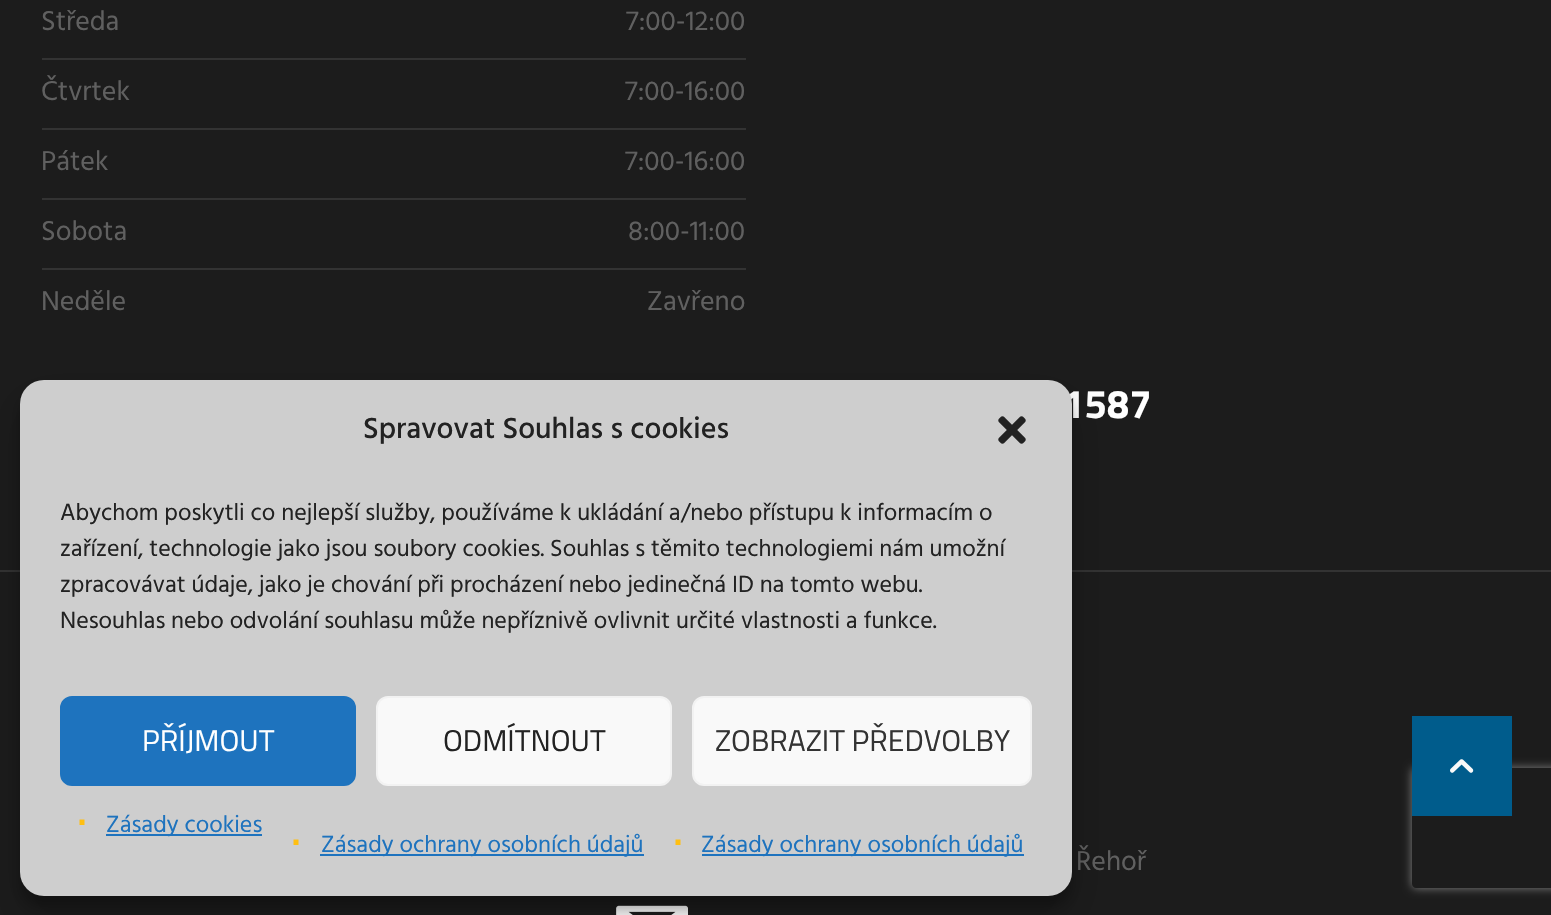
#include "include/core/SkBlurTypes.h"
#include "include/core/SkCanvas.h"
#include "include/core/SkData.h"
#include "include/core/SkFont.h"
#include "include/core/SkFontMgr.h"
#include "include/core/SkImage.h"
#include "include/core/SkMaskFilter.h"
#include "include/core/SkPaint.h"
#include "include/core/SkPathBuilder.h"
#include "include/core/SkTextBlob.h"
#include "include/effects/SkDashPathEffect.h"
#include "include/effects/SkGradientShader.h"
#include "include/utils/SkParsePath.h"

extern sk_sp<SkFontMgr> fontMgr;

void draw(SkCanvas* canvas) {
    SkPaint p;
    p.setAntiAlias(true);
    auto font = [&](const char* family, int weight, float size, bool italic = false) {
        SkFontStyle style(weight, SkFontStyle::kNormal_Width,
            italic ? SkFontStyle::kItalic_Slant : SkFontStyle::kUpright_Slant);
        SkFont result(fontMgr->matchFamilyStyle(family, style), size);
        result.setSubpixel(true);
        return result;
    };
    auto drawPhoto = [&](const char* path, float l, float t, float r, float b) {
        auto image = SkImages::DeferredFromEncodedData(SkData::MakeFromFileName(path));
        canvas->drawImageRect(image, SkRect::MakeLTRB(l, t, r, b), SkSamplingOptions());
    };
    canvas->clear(0xFF1C1C1C);
    auto font1 = font("Hind", 400, 28);
    p.setColor(0xFF606060);
    canvas->drawString("Středa", 41, 30, font1, p);
    canvas->drawString("7:00-12:00", 626, 30, font1, p);
    p.setColor(0xFF333333);
    canvas->drawRect(SkRect::MakeLTRB(42, 58, 746, 60), p);
    p.setColor(0xFF606060);
    canvas->drawString("Čtvrtek", 41, 100, font1, p);
    canvas->drawString("7:00-16:00", 625, 100, font1, p);
    p.setColor(0xFF333333);
    canvas->drawRect(SkRect::MakeLTRB(42, 128, 746, 130), p);
    p.setColor(0xFF606060);
    canvas->drawString("Pátek", 41, 170, font1, p);
    canvas->drawString("7:00-16:00", 625, 170, font1, p);
    p.setColor(0xFF333333);
    canvas->drawRect(SkRect::MakeLTRB(42, 198, 746, 200), p);
    p.setColor(0xFF606060);
    canvas->drawString("Sobota", 41, 240, font1, p);
    canvas->drawString("8:00-11:00", 628, 240, font1, p);
    p.setColor(0xFF333333);
    canvas->drawRect(SkRect::MakeLTRB(42, 268, 746, 270), p);
    p.setColor(0xFF606060);
    canvas->drawString("Neděle", 41, 310, font1, p);
    canvas->drawString("Zavřeno", 647, 310, font1, p);
    auto font2 = font("Titillium Web", 700, 40);
    p.setColor(0xFFFFFFFF);
    canvas->drawString("1587", 1062, 418, font2, p);
    canvas->save();
    canvas->clipPath(SkPathBuilder(SkPathFillType::kEvenOdd).moveTo(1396, 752).lineTo(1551, 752).lineTo(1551, 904).lineTo(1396, 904).close().moveTo(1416, 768).lineTo(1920, 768).cubicTo(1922, 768, 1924, 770, 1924, 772).lineTo(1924, 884).cubicTo(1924, 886, 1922, 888, 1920, 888).lineTo(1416, 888).cubicTo(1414, 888, 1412, 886, 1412, 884).lineTo(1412, 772).cubicTo(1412, 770, 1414, 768, 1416, 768).close().detach(), true);
    p.setColor(0xFF808080);
    p.setMaskFilter(SkMaskFilter::MakeBlur(kNormal_SkBlurStyle, 5));
    canvas->drawRoundRect(SkRect::MakeLTRB(1412, 768, 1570, 888), 4, 4, p);
    p.setMaskFilter(nullptr);
    canvas->restore();
    p.setColor(0xFF005C8C);
    canvas->drawRect(SkRect::MakeLTRB(1412, 716, 1512, 816), p);
    drawPhoto("media/1.png", 1450, 759, 1474, 773);
    p.setColor(0xFF333333);
    canvas->drawRect(SkRect::MakeLTRB(0, 570, 1551, 572), p);
    p.setColor(0xFF606060);
    canvas->drawString("Řehoř", 1076, 870, font1, p);
    drawPhoto("media/2.png", 616, 905, 688, 915);
    p.setColor(0x3B000000);
    p.setMaskFilter(SkMaskFilter::MakeBlur(kNormal_SkBlurStyle, 6));
    canvas->drawRoundRect(SkRect::MakeLTRB(20, 392, 1072, 908), 24, 24, p);
    p.setMaskFilter(nullptr);
    p.setColor(0x30000000);
    p.setMaskFilter(SkMaskFilter::MakeBlur(kNormal_SkBlurStyle, 20));
    canvas->drawRoundRect(SkRect::MakeLTRB(20, 400, 1072, 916), 24, 24, p);
    p.setMaskFilter(nullptr);
    p.setColor(0xFFCECECE);
    canvas->drawRoundRect(SkRect::MakeLTRB(20, 380, 1072, 896), 24, 24, p);
    auto font3 = font("Hind", 500, 30);
    p.setColor(0xFF222222);
    canvas->drawString("Spravovat Souhlas s cookies", 363, 438, font3, p);
    drawPhoto("media/3.png", 998, 416, 1026, 444);
    auto font4 = font("Hind", 400, 24);
    {
        const struct { const char* s; float x, y; } items[] = {
            {"Abychom poskytli co nejlepší služby, používáme k ukládání a/nebo přístupu k informacím o", 60, 520},
            {"zařízení, technologie jako jsou soubory cookies. Souhlas s těmito technologiemi nám umožní", 60, 556},
            {"zpracovávat údaje, jako je chování při procházení nebo jedinečná ID na tomto webu.", 60, 592},
            {"Nesouhlas nebo odvolání souhlasu může nepříznivě ovlivnit určité vlastnosti a funkce.", 60, 628},
        };
        for (auto [s, x, y] : items) {
            canvas->drawString(s, x, y, font4, p);
        }
    }
    p.setColor(0xFF1E73BE);
    canvas->drawRoundRect(SkRect::MakeLTRB(61, 697, 355, 785), 11, 11, p);
    p.setStyle(SkPaint::kStroke_Style);
    p.setStrokeWidth(2);
    canvas->drawRoundRect(SkRect::MakeLTRB(61, 697, 355, 785), 11, 11, p);
    auto font5 = font("Titillium Web", 400, 30);
    p.setStyle(SkPaint::kFill_Style);
    p.setColor(0xFFFFFFFF);
    canvas->drawString("PŘÍJMOUT", 142, 751, font5, p);
    p.setColor(0xFFF9F9F9);
    canvas->drawRoundRect(SkRect::MakeLTRB(377, 697, 671, 785), 11, 11, p);
    p.setStyle(SkPaint::kStroke_Style);
    p.setColor(0xFFF2F2F2);
    canvas->drawRoundRect(SkRect::MakeLTRB(377, 697, 671, 785), 11, 11, p);
    p.setStyle(SkPaint::kFill_Style);
    p.setColor(0xFF222222);
    canvas->drawString("ODMÍTNOUT", 443, 751, font5, p);
    p.setColor(0xFFF9F9F9);
    canvas->drawRoundRect(SkRect::MakeLTRB(693, 697, 1031, 785), 11, 11, p);
    p.setStyle(SkPaint::kStroke_Style);
    p.setColor(0xFFF2F2F2);
    canvas->drawRoundRect(SkRect::MakeLTRB(693, 697, 1031, 785), 11, 11, p);
    p.setStyle(SkPaint::kFill_Style);
    p.setColor(0xFF333333);
    canvas->drawString("ZOBRAZIT PŘEDVOLBY", 715, 751, font5, p);
    p.setColor(0xFFFFBF11);
    canvas->drawPath(SkPathBuilder().moveTo(84.5f, 825).lineTo(79.5f, 825).lineTo(79.5f, 819.5f).lineTo(84.5f, 819.5f).close().detach(), p);
    p.setColor(0xFF1E73BE);
    canvas->drawRect(SkRect::MakeLTRB(106, 834, 262, 836), p);
    canvas->drawString("Zásady cookies", 106, 832, font4, p);
    p.setColor(0xFFFFBF11);
    canvas->drawPath(SkPathBuilder().moveTo(298.5f, 845).lineTo(293.5f, 845).lineTo(293.5f, 839.5f).lineTo(298.5f, 839.5f).close().detach(), p);
    p.setColor(0xFF1E73BE);
    canvas->drawRect(SkRect::MakeLTRB(320, 854, 644, 856), p);
    canvas->drawString("Zásady ochrany osobních údajů", 321, 852, font4, p);
    p.setColor(0xFFFFBF11);
    canvas->drawPath(SkPathBuilder().moveTo(680.5f, 845).lineTo(675.5f, 845).lineTo(675.5f, 839.5f).lineTo(680.5f, 839.5f).close().detach(), p);
    p.setColor(0xFF1E73BE);
    canvas->drawRect(SkRect::MakeLTRB(702, 854, 1024, 856), p);
    canvas->drawString("Zásady ochrany osobních údajů", 701, 852, font4, p);
}
